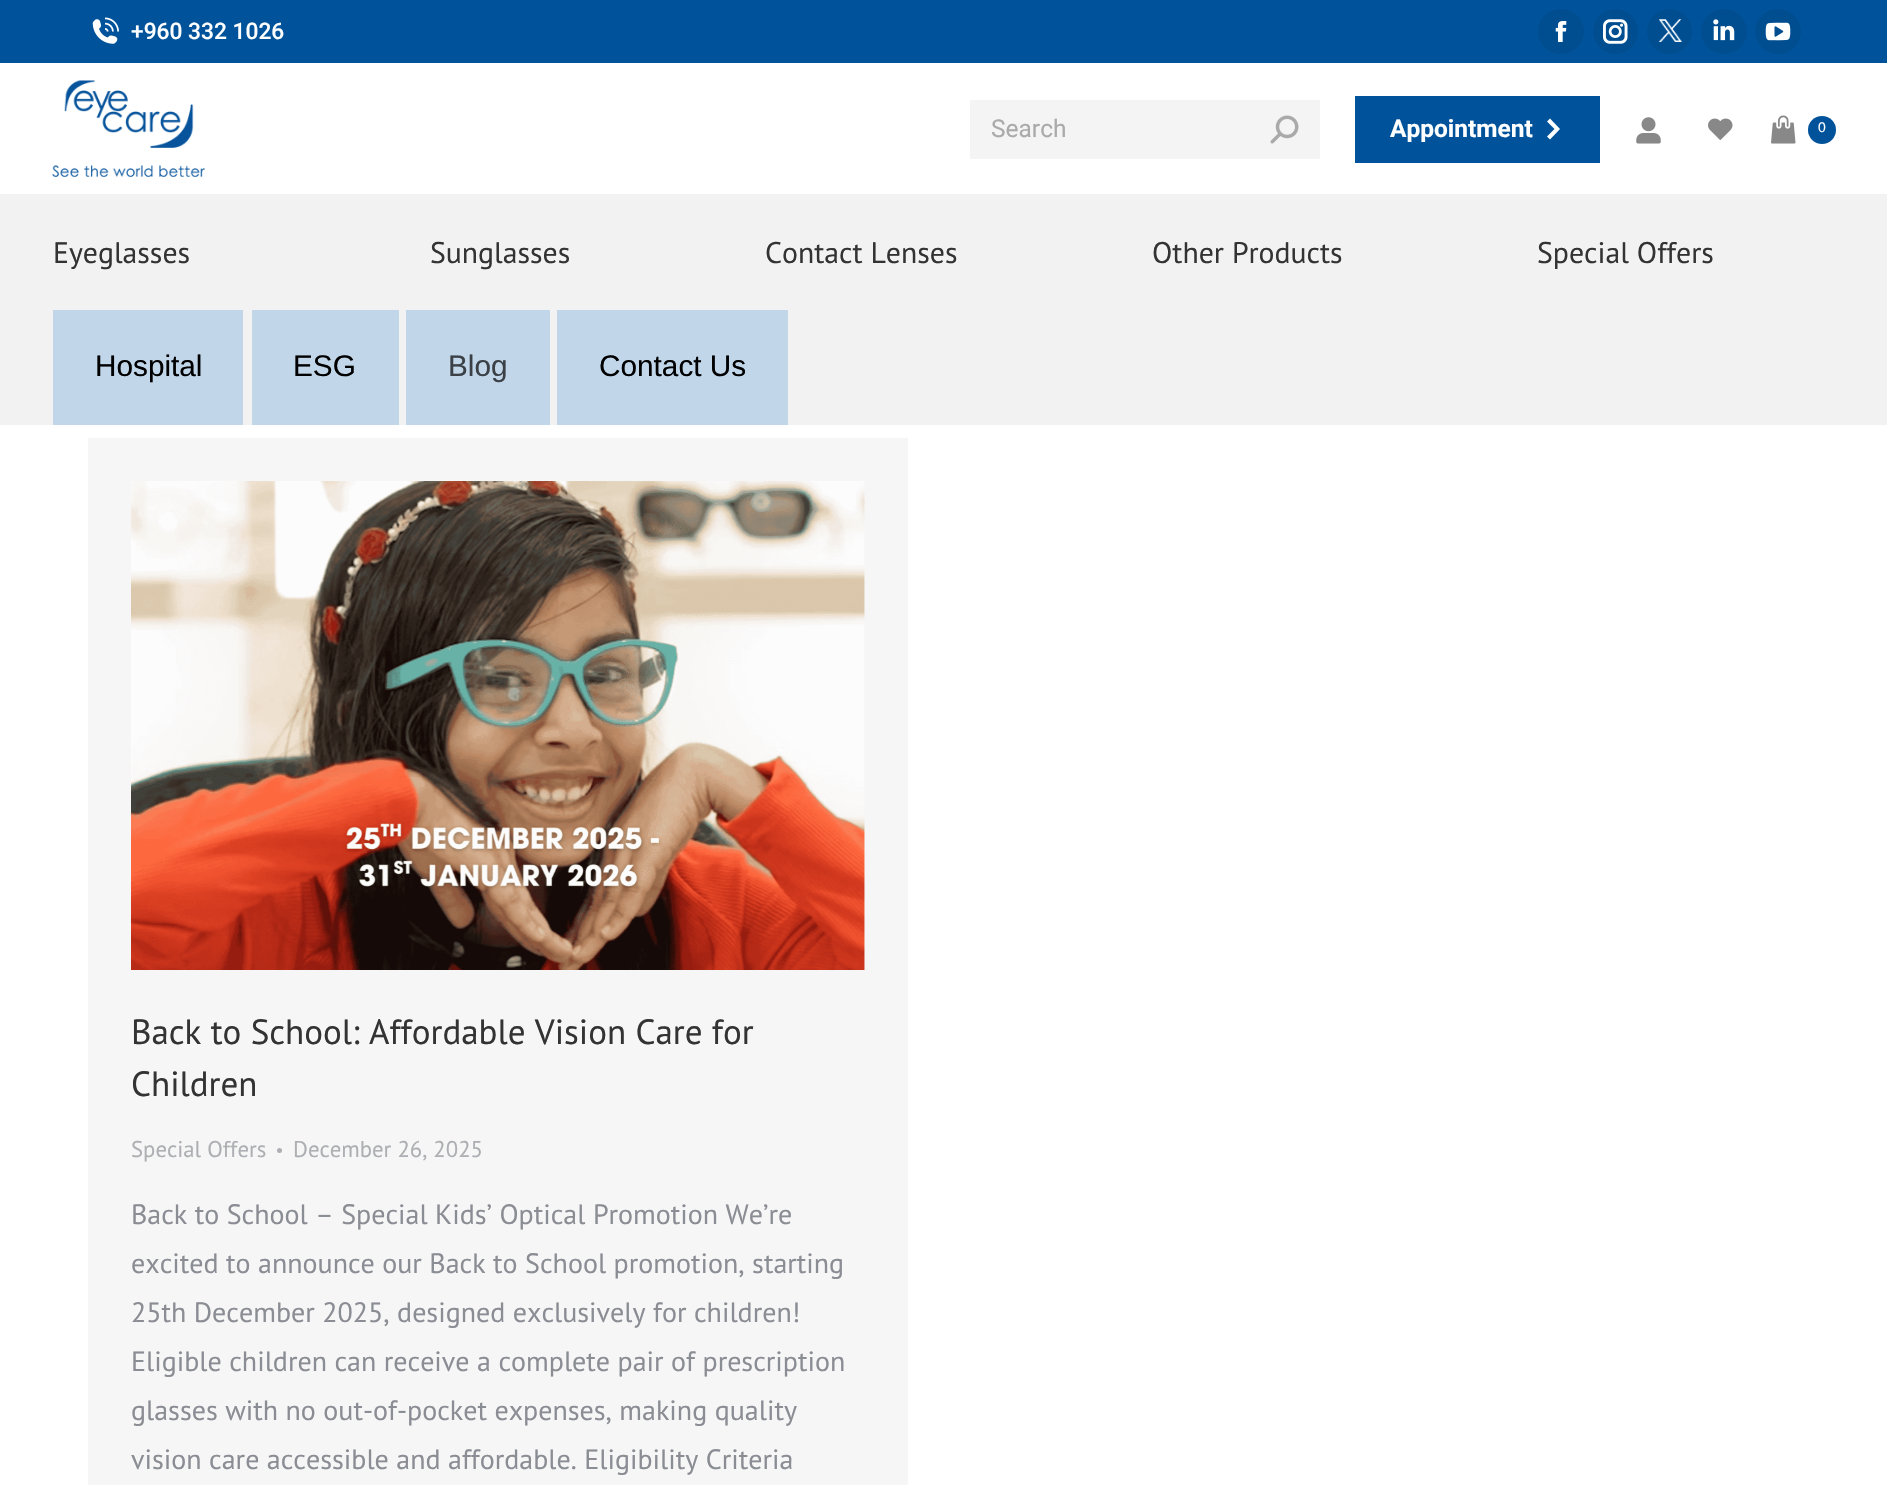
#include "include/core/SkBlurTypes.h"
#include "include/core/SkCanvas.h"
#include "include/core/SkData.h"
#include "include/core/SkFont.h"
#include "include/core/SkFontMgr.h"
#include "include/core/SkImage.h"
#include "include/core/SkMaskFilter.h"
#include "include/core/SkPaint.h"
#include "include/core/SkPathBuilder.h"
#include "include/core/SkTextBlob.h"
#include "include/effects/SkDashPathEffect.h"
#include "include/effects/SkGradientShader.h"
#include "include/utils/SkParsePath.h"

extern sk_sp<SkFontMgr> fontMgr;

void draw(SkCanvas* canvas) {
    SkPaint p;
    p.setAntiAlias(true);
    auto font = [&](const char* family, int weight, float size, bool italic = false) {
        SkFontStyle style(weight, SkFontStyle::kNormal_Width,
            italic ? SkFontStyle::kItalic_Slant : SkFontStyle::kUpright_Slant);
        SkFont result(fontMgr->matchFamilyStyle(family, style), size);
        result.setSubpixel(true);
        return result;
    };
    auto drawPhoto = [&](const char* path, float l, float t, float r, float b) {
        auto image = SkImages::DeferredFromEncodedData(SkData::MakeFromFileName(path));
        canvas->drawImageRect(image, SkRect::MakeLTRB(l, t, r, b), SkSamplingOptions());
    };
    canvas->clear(0xFFFFFFFF);
    p.setColor(0xFF00539B);
    canvas->drawRect(SkRect::MakeLTRB(0, 0, 1887, 63), p);
    drawPhoto("media/1.png", 92, 17, 119, 44);
    auto font1 = font("Roboto", 500, 22.75f);
    p.setColor(0xFFFFFFFF);
    canvas->drawString("+960 332 1026", 131, 39, font1, p);
    p.setColor(0xFF004D90);
    canvas->drawRoundRect(SkRect::MakeLTRB(1538, 9, 1584, 54), 22.5f, 22.5f, p);
    drawPhoto("media/2.png", 1555, 21, 1567, 42);
    canvas->drawCircle(1615.5f, 31.5f, 22.5f, p);
    drawPhoto("media/3.png", 1603, 19, 1628, 44);
    canvas->drawCircle(1669.5f, 31.5f, 22.5f, p);
    drawPhoto("media/4.png", 1659, 19, 1682, 42);
    canvas->drawRoundRect(SkRect::MakeLTRB(1701, 9, 1747, 54), 22.5f, 22.5f, p);
    drawPhoto("media/5.png", 1713, 19, 1735, 41);
    canvas->drawRoundRect(SkRect::MakeLTRB(1755, 9, 1801, 54), 22.5f, 22.5f, p);
    drawPhoto("media/6.png", 1765, 22, 1791, 41);
    drawPhoto("media/7.png", 52, 80, 205, 177);
    p.setColor(0xFFF4F4F4);
    canvas->drawRect(SkRect::MakeLTRB(970, 100, 1320, 159), p);
    auto font2 = font("Roboto", 400, 24.5f);
    p.setColor(0xFFAAAAAA);
    canvas->drawString("Search", 991, 137, font2, p);
    drawPhoto("media/8.png", 1270, 115, 1299, 144);
    p.setColor(0xFF00539B);
    canvas->drawRect(SkRect::MakeLTRB(1355, 96, 1600, 163), p);
    auto font3 = font("Roboto", 700, 24.5f);
    p.setColor(0xFFFFFFFF);
    canvas->drawString("Appointment", 1390, 137, font3, p);
    canvas->drawPath(SkPathBuilder().moveTo(1550, 139.5f).lineTo(1560, 129).lineTo(1550, 118.5f).lineTo(1547, 121.5f).lineTo(1554.5f, 129).lineTo(1547, 136.5f).close().detach(), p);
    drawPhoto("media/9.png", 1636, 117, 1661, 144);
    drawPhoto("media/10.png", 1708, 118, 1733, 140);
    drawPhoto("media/11.png", 1771, 115, 1796, 144);
    p.setColor(0xFF00539B);
    canvas->drawCircle(1822, 130, 14, p);
    auto font4 = font("Liberation Sans", 400, 14);
    p.setColor(0xFFFFFFFF);
    canvas->drawString("0", 1818, 132, font4, p);
    p.setColor(0xFFF2F2F2);
    canvas->drawRect(SkRect::MakeLTRB(0, 194, 1887, 425), p);
    auto font5 = font("PT Sans", 400, 29.75f);
    p.setColor(0xFF333333);
    {
        const struct { const char* s; float x, y; } items[] = {
            {"Eyeglasses", 53, 263},
            {"Sunglasses", 430, 263},
            {"Contact Lenses", 765, 263},
            {"Other Products", 1152, 263},
            {"Special Offers", 1537, 263},
        };
        for (auto [s, x, y] : items) {
            canvas->drawString(s, x, y, font5, p);
        }
    }
    p.setColor(0xFFC1D6E9);
    canvas->drawRect(SkRect::MakeLTRB(53, 310, 243, 425), p);
    auto font6 = font("Liberation Sans", 400, 29.75f);
    p.setColor(0xFF000000);
    canvas->drawString("Hospital", 95, 376, font6, p);
    p.setColor(0xFFC1D6E9);
    canvas->drawRect(SkRect::MakeLTRB(252, 310, 399, 425), p);
    p.setColor(0xFF000000);
    canvas->drawString("ESG", 293, 376, font6, p);
    p.setColor(0xFFC1D6E9);
    canvas->drawRect(SkRect::MakeLTRB(406, 310, 550, 425), p);
    p.setColor(0xFF3A4046);
    canvas->drawString("Blog", 448, 376, font6, p);
    p.setColor(0xFFC1D6E9);
    canvas->drawRect(SkRect::MakeLTRB(557, 310, 788, 425), p);
    p.setColor(0xFF000000);
    canvas->drawString("Contact Us", 599, 376, font6, p);
    p.setColor(0xFFF6F6F6);
    canvas->drawRect(SkRect::MakeLTRB(88, 438, 908, 1485), p);
    drawPhoto("media/12.png", 131, 481, 865, 970);
    auto font7 = font("PT Sans", 400, 35);
    p.setColor(0xFF333333);
    canvas->drawString("Back to School: Affordable Vision Care for", 131, 1044, font7, p);
    canvas->drawString("Children", 131, 1096, font7, p);
    auto font8 = font("PT Sans", 400, 22.75f);
    p.setColor(0xFFADAFB3);
    canvas->drawString("Special Offers", 131, 1157, font8, p);
    canvas->drawCircle(279.5f, 1150.5f, 2.5f, p);
    canvas->drawString("December 26, 2025", 293, 1157, font8, p);
    auto font9 = font("PT Sans", 400, 28);
    p.setColor(0xFF8B8D94);
    {
        const struct { const char* s; float x, y; } items[] = {
            {"Back to School – Special Kids’ Optical Promotion We’re", 131, 1224},
            {"excited to announce our Back to School promotion, starting", 131, 1273},
            {"25th December 2025, designed exclusively for children!", 131, 1322},
            {"Eligible children can receive a complete pair of prescription", 131, 1371},
            {"glasses with no out-of-pocket expenses, making quality", 131, 1420},
            {"vision care accessible and affordable. Eligibility Criteria", 131, 1469},
        };
        for (auto [s, x, y] : items) {
            canvas->drawString(s, x, y, font9, p);
        }
    }
}
